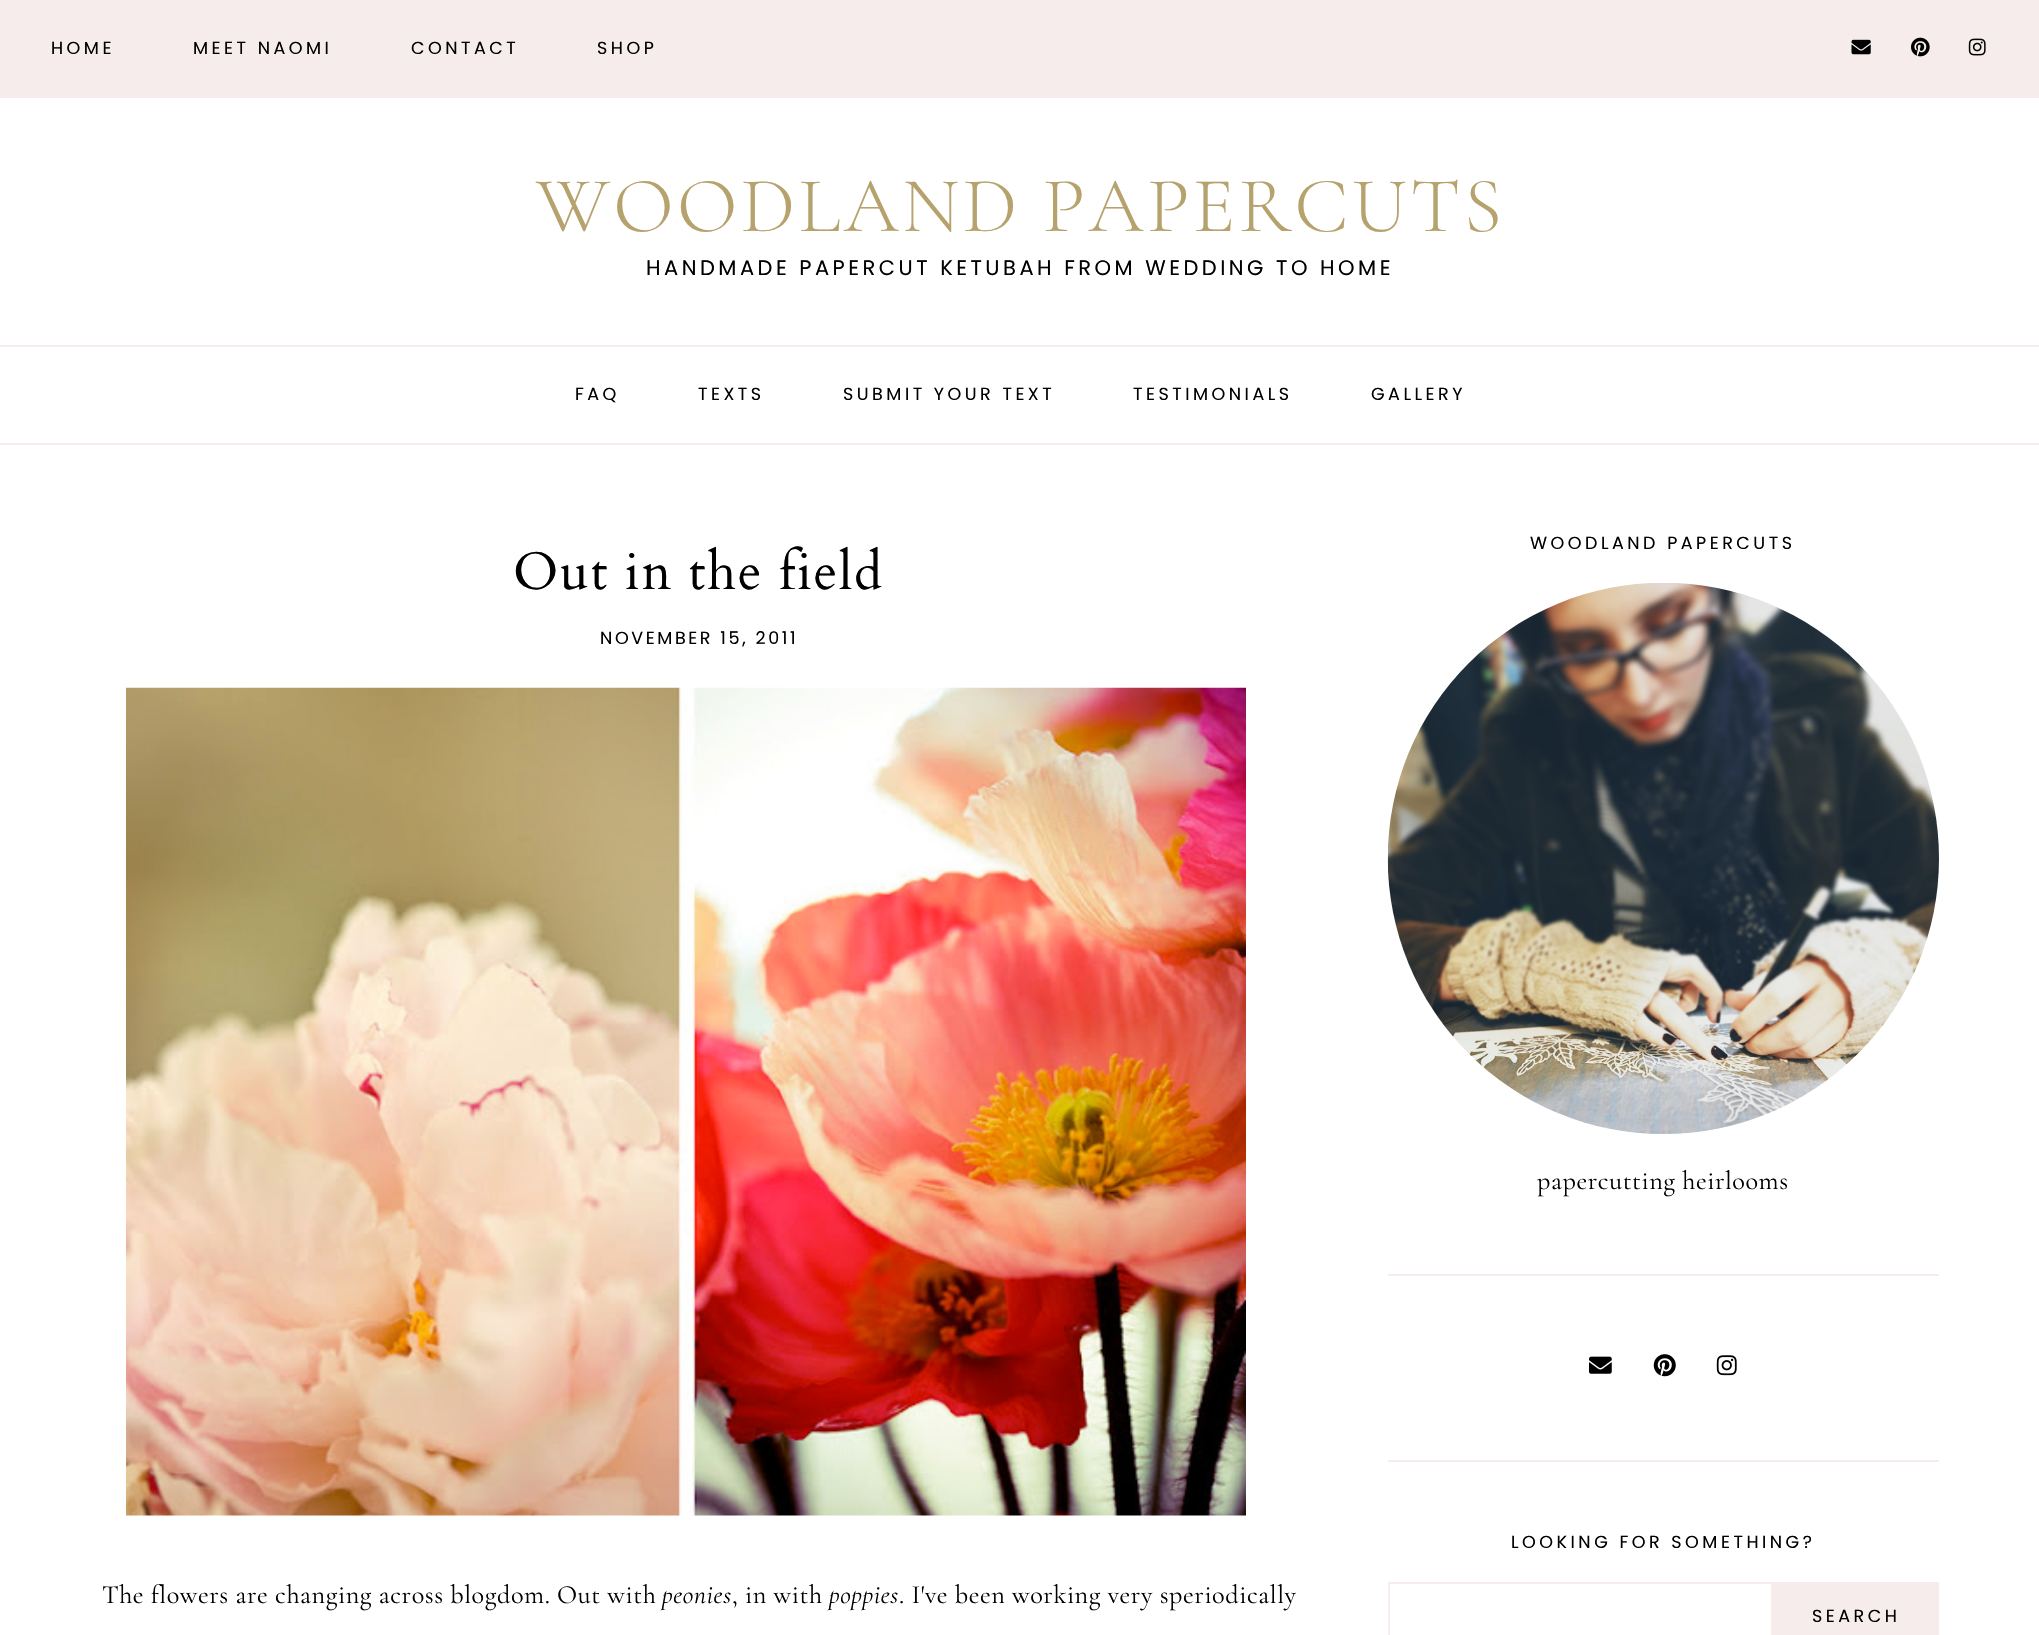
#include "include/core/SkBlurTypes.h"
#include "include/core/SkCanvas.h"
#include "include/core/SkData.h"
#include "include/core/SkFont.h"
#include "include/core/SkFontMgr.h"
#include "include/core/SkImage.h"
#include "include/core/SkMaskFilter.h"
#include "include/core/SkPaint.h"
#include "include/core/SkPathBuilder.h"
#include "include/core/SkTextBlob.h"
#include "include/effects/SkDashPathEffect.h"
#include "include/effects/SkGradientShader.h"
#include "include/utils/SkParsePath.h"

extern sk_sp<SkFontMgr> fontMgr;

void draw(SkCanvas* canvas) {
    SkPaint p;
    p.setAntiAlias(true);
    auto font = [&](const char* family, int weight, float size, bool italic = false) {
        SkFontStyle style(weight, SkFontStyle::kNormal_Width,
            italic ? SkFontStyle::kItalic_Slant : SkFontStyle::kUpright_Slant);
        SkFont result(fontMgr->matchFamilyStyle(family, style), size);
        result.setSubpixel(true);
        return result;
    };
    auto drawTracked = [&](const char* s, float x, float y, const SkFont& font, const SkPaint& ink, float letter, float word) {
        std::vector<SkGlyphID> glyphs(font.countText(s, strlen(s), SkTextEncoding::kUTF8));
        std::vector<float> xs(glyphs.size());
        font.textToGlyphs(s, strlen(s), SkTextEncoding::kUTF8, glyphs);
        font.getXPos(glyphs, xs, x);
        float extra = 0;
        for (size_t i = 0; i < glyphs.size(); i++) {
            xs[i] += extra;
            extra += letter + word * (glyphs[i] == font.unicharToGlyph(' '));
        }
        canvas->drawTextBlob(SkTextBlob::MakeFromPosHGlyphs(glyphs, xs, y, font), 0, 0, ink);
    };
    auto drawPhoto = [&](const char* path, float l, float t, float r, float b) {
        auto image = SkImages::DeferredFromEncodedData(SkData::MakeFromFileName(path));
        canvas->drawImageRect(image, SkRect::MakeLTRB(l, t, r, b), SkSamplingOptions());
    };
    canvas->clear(0xFFFFFFFF);
    p.setColor(0xFFF6ECEC);
    canvas->drawRect(SkRect::MakeLTRB(0, 0, 2039, 98), p);
    auto font1 = font("Poppins", 400, 17.5f);
    p.setColor(0xFF000000);
    {
        const struct { const char* s; float x, y; } items[] = {
            {"HOME", 51, 54},
            {"MEET NAOMI", 193, 54},
            {"CONTACT", 411, 54},
            {"SHOP", 597, 54},
        };
        for (auto [s, x, y] : items) {
            drawTracked(s, x, y, font1, p, 3.5f, 0);
        }
    }
    drawPhoto("media/1.png", 1851, 39, 1871, 55);
    drawPhoto("media/2.png", 1911, 37, 1930, 57);
    drawPhoto("media/3.png", 1968, 38, 1986, 56);
    auto font2 = font("Cormorant Garamond", 300, 78.75f);
    p.setColor(0xFFB6A26C);
    drawTracked("WOODLAND PAPERCUTS", 536, 231, font2, p, 3.5f, 0);
    auto font3 = font("Poppins", 400, 21);
    p.setColor(0xFF000000);
    drawTracked("HANDMADE PAPERCUT KETUBAH FROM WEDDING TO HOME", 646, 275, font3, p, 3.5f, 0);
    p.setColor(0xFFF6ECEC);
    canvas->drawRect(SkRect::MakeLTRB(0, 345, 2039, 347), p);
    canvas->drawRect(SkRect::MakeLTRB(0, 443, 2039, 445), p);
    p.setColor(0xFF000000);
    {
        const struct { const char* s; float x, y; } items[] = {
            {"FAQ", 575, 400},
            {"TEXTS", 698, 400},
            {"SUBMIT YOUR TEXT", 843, 400},
            {"TESTIMONIALS", 1133, 400},
            {"GALLERY", 1371, 400},
        };
        for (auto [s, x, y] : items) {
            drawTracked(s, x, y, font1, p, 3.5f, 0);
        }
    }
    auto font4 = font("Cardo", 400, 52.5f);
    drawTracked("Out in the field", 513, 589, font4, p, 1.75f, 0);
    drawTracked("NOVEMBER 15, 2011", 600, 644, font1, p, 2.6f, 0);
    drawPhoto("media/4.png", 126, 687, 1246, 1516);
    auto font5 = font("Cormorant Garamond", 400, 26.25f);
    drawTracked("The flowers are changing across blogdom. Out with", 102, 1603, font5, p, 0.55f, 0);
    auto font6 = font("Cormorant Garamond", 400, 26.25f, true);
    drawTracked("peonies", 662, 1603, font6, p, 0.55f, 0);
    drawTracked(", in with", 732, 1603, font5, p, 0.55f, 0);
    drawTracked("poppies", 829, 1603, font6, p, 0.55f, 0);
    drawTracked(". I've been working very speriodically", 899, 1603, font5, p, 0.55f, 0);
    p.setColor(0xFFF6ECEC);
    canvas->drawRect(SkRect::MakeLTRB(1388, 1274, 1939, 1276), p);
    p.setColor(0xFF000000);
    drawTracked("WOODLAND PAPERCUTS", 1530, 549, font1, p, 3.5f, 0);
    drawPhoto("media/5.png", 1387, 583, 1939, 1134);
    drawTracked("papercutting heirlooms", 1537, 1189, font5, p, 0.55f, 0);
    p.setColor(0xFFF6ECEC);
    canvas->drawRect(SkRect::MakeLTRB(1388, 1460, 1939, 1462), p);
    drawPhoto("media/6.png", 1589, 1356, 1612, 1374);
    drawPhoto("media/7.png", 1653, 1354, 1676, 1377);
    drawPhoto("media/8.png", 1716, 1355, 1737, 1376);
    p.setColor(0xFF000000);
    drawTracked("LOOKING FOR SOMETHING?", 1511, 1548, font1, p, 3.5f, 0);
    p.setStyle(SkPaint::kStroke_Style);
    p.setStrokeWidth(2);
    p.setColor(0xFFF6ECEC);
    canvas->drawRect(SkRect::MakeLTRB(1389, 1583, 1772, 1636), p);
    p.setStyle(SkPaint::kFill_Style);
    canvas->drawRect(SkRect::MakeLTRB(1773, 1582, 1939, 1635), p);
    p.setColor(0xFF000000);
    drawTracked("SEARCH", 1812, 1622, font1, p, 3.5f, 0);
}
